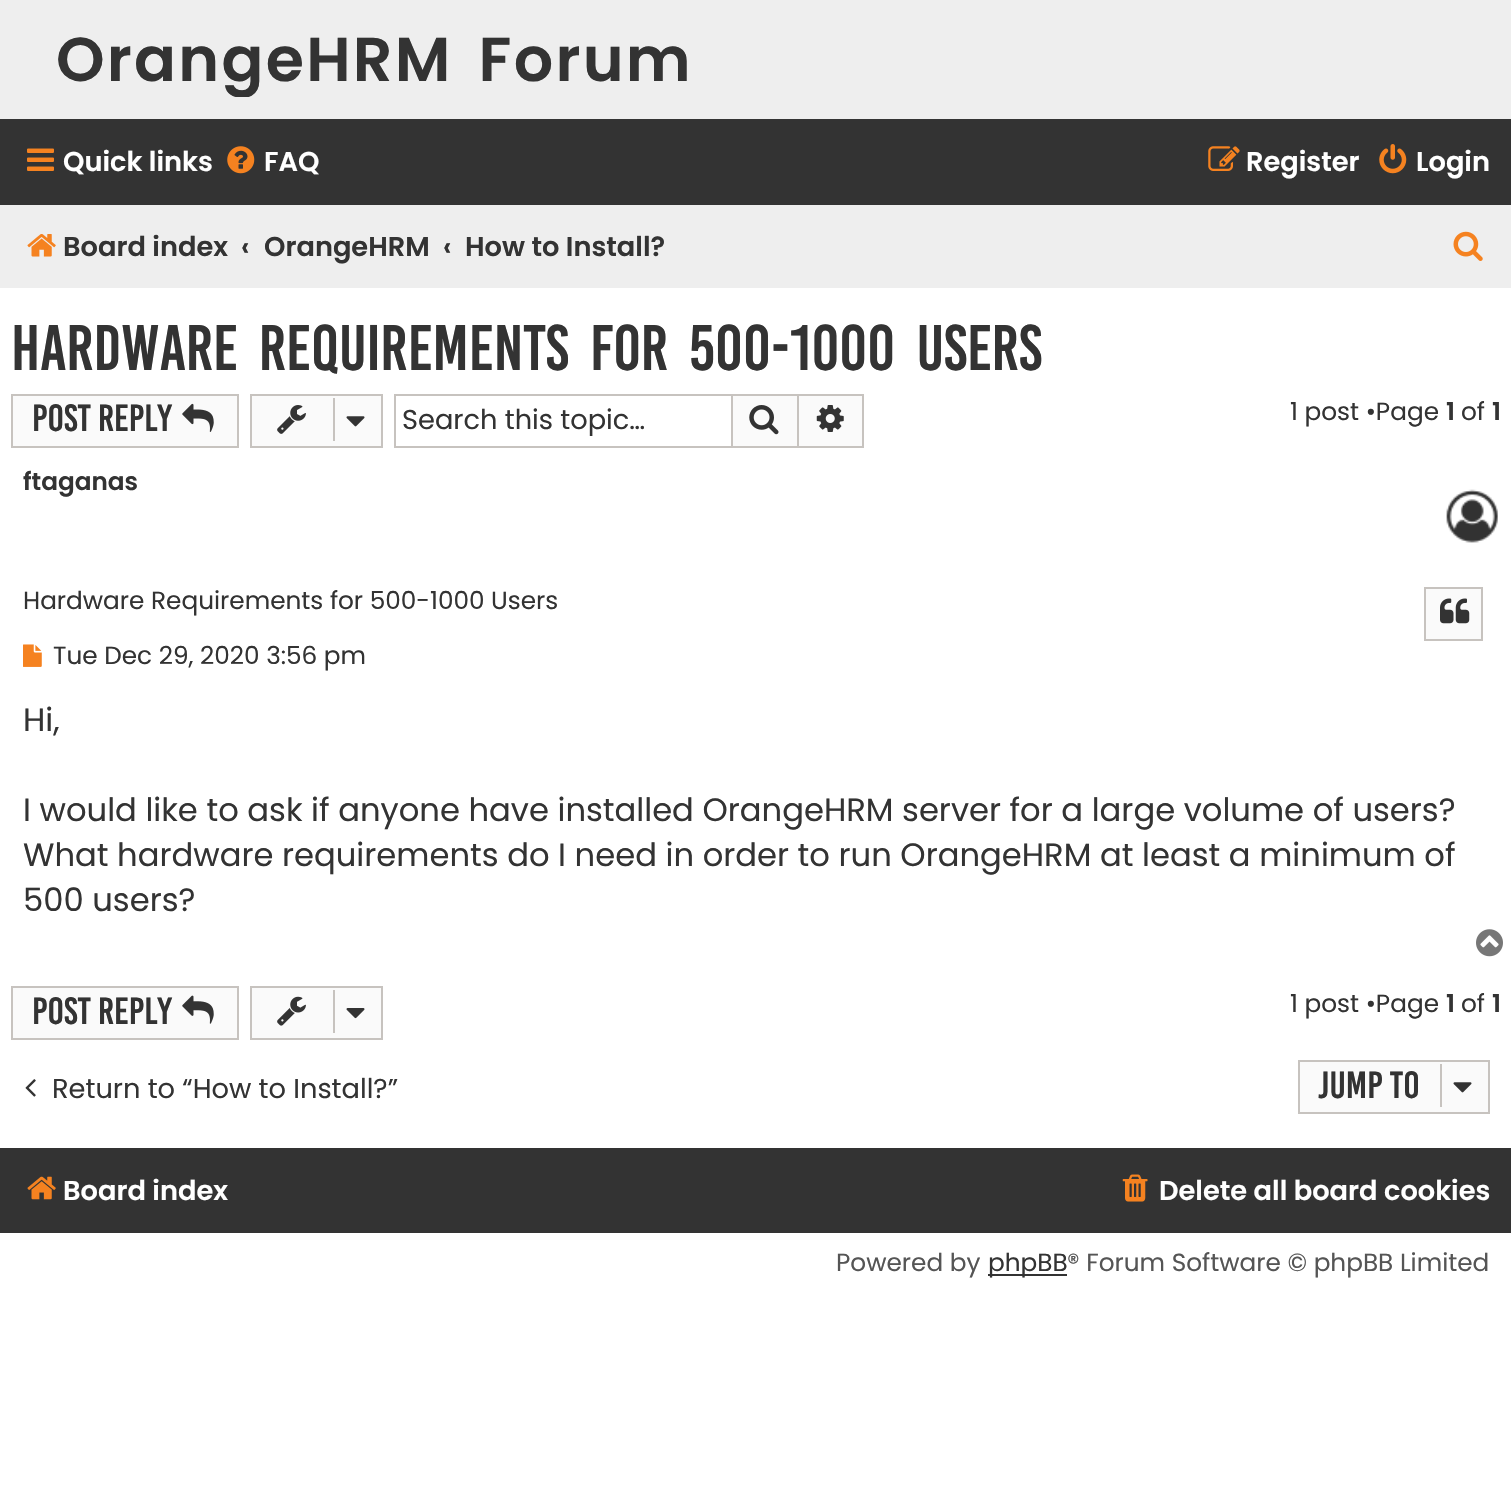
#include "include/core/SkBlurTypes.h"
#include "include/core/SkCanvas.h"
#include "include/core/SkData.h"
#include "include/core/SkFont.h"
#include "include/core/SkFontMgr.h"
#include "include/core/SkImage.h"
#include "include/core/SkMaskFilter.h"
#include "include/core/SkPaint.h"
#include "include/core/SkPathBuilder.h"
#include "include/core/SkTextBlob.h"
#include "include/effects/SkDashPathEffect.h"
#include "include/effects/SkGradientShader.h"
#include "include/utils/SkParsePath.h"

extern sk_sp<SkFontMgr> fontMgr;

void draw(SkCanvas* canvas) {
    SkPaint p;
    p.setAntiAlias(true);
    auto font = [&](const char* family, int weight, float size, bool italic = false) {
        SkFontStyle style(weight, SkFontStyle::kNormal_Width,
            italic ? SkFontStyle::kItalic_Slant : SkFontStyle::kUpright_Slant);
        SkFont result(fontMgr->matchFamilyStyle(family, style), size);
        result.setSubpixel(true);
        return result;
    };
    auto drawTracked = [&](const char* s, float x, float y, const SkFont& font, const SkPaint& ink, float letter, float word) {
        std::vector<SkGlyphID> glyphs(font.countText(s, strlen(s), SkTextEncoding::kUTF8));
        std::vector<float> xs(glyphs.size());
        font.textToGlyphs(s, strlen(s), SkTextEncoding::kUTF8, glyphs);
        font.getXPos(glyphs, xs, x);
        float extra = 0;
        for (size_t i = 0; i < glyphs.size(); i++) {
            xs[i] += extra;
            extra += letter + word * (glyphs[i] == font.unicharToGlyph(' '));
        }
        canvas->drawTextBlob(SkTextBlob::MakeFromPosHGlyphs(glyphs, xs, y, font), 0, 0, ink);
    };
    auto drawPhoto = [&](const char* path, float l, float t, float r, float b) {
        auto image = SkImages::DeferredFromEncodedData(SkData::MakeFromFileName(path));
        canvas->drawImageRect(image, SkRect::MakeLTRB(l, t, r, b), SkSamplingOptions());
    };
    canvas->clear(0xFFFFFFFF);
    p.setColor(0xFFEEEEEE);
    canvas->drawRect(SkRect::MakeLTRB(0, 0, 1511, 119), p);
    canvas->save();
    canvas->clipRect(SkRect::MakeLTRB(56, 23, 693, 97));
    auto font1 = font("Poppins", 600, 61.9f);
    p.setColor(0xFF333333);
    drawTracked("OrangeHRM Forum", 56, 81, font1, p, 2.25f, 9);
    canvas->restore();
    canvas->drawRect(SkRect::MakeLTRB(0, 119, 1511, 205), p);
    drawPhoto("media/1.png", 27, 148, 54, 171);
    auto font2 = font("Poppins", 600, 27.25f);
    p.setColor(0xFFFFFFFF);
    canvas->drawString("Quick links", 63, 171, font2, p);
    drawPhoto("media/2.png", 227, 146, 255, 174);
    canvas->drawString("FAQ", 264, 171, font2, p);
    drawPhoto("media/3.png", 1208, 146, 1240, 171);
    canvas->drawString("Register", 1246, 171, font2, p);
    drawPhoto("media/4.png", 1379, 144, 1407, 174);
    canvas->drawString("Login", 1416, 171, font2, p);
    p.setColor(0xFFEEEEEE);
    canvas->drawRect(SkRect::MakeLTRB(0, 205, 1511, 288), p);
    drawPhoto("media/5.png", 27, 234, 56, 257);
    p.setColor(0xFF333333);
    {
        const struct { const char* s; float x, y; } items[] = {
            {"Board index", 63, 256},
            {"‹", 241, 256},
            {"OrangeHRM", 264, 256},
            {"‹", 443, 256},
            {"How to Install?", 465, 256},
        };
        for (auto [s, x, y] : items) {
            canvas->drawString(s, x, y, font2, p);
        }
    }
    drawPhoto("media/6.png", 1453, 231, 1483, 261);
    auto font3 = font("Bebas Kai", 400, 49.5f);
    drawTracked("Hardware Requirements for 500-1000 Users", 11, 370, font3, p, 0, 9);
    p.setColor(0xFFFAFAFA);
    canvas->drawRect(SkRect::MakeLTRB(12, 395, 238, 447), p);
    p.setStyle(SkPaint::kStroke_Style);
    p.setStrokeWidth(2);
    p.setColor(0xFFC7C3BF);
    canvas->drawRect(SkRect::MakeLTRB(12, 395, 238, 447), p);
    auto font4 = font("Bebas Kai", 400, 29.25f);
    p.setStyle(SkPaint::kFill_Style);
    p.setColor(0xFF333333);
    canvas->drawString("Post Reply", 32, 431, font4, p);
    drawPhoto("media/7.png", 182, 403, 214, 432);
    p.setColor(0xFFFAFAFA);
    canvas->drawRect(SkRect::MakeLTRB(251, 395, 382, 447), p);
    p.setStyle(SkPaint::kStroke_Style);
    p.setColor(0xFFC7C3BF);
    canvas->drawRect(SkRect::MakeLTRB(251, 395, 382, 447), p);
    drawPhoto("media/8.png", 277, 405, 306, 434);
    p.setStyle(SkPaint::kFill_Style);
    canvas->drawRect(SkRect::MakeLTRB(333, 398, 335, 441), p);
    drawPhoto("media/9.png", 346, 416, 365, 427);
    {
        const struct { float l, t, r, b; SkColor color; } items[] = {
            {394, 394, 731, 396, 0xFFC7C3BF},
            {394, 446, 731, 448, 0xFFC7C3BF},
            {394, 394, 396, 448, 0xFFC7C3BF},
        };
        for (auto [l, t, r, b, color] : items) {
            p.setColor(color);
            canvas->drawRect(SkRect::MakeLTRB(l, t, r, b), p);
        }
    }
    auto font5 = font("Poppins", 400, 27.25f);
    p.setColor(0xFF333333);
    canvas->drawString("Search this topic…", 402, 429, font5, p);
    p.setColor(0xFFFAFAFA);
    canvas->drawRect(SkRect::MakeLTRB(732, 395, 798, 447), p);
    p.setStyle(SkPaint::kStroke_Style);
    p.setColor(0xFFC7C3BF);
    canvas->drawRect(SkRect::MakeLTRB(732, 395, 798, 447), p);
    drawPhoto("media/10.png", 749, 405, 779, 435);
    p.setStyle(SkPaint::kFill_Style);
    {
        const struct { float l, t, r, b; SkColor color; } items[] = {
            {799, 396, 862, 446, 0xFFFAFAFA},
            {799, 394, 864, 396, 0xFFC7C3BF},
            {862, 394, 864, 448, 0xFFC7C3BF},
            {799, 446, 864, 448, 0xFFC7C3BF},
        };
        for (auto [l, t, r, b, color] : items) {
            p.setColor(color);
            canvas->drawRect(SkRect::MakeLTRB(l, t, r, b), p);
        }
    }
    drawPhoto("media/11.png", 816, 405, 844, 432);
    auto font6 = font("Poppins", 400, 24.75f);
    p.setColor(0xFF333333);
    canvas->drawString("1 post •Page", 1290, 420, font6, p);
    auto font7 = font("Poppins", 600, 24.75f);
    canvas->drawString("1", 1446, 420, font7, p);
    canvas->drawString("of", 1461, 420, font6, p);
    canvas->drawString("1", 1492, 420, font7, p);
    drawPhoto("media/12.png", 1446, 489, 1498, 543);
    canvas->drawString("ftaganas", 23, 490, font7, p);
    canvas->drawString("Hardware Requirements for 500-1000 Users", 23, 609, font6, p);
    p.setColor(0xFFFAFAFA);
    canvas->drawRect(SkRect::MakeLTRB(1425, 588, 1482, 640), p);
    p.setStyle(SkPaint::kStroke_Style);
    p.setColor(0xFFC7C3BF);
    canvas->drawRect(SkRect::MakeLTRB(1425, 588, 1482, 640), p);
    drawPhoto("media/13.png", 1440, 598, 1470, 624);
    drawPhoto("media/14.png", 23, 644, 42, 667);
    p.setStyle(SkPaint::kFill_Style);
    p.setColor(0xFF333333);
    canvas->drawString("Tue Dec 29, 2020 3:56 pm", 53, 664, font6, p);
    auto font8 = font("Poppins", 400, 32.2f);
    {
        const struct { const char* s; float x, y; } items[] = {
            {"Hi,", 23, 731},
            {"I would like to ask if anyone have installed OrangeHRM server for a large volume of users?", 23, 821},
            {"What hardware requirements do I need in order to run OrangeHRM at least a minimum of", 23, 866},
            {"500 users?", 23, 911},
        };
        for (auto [s, x, y] : items) {
            canvas->drawString(s, x, y, font8, p);
        }
    }
    drawPhoto("media/15.png", 1476, 929, 1503, 957);
    p.setColor(0xFFFAFAFA);
    canvas->drawRect(SkRect::MakeLTRB(12, 987, 238, 1039), p);
    p.setStyle(SkPaint::kStroke_Style);
    p.setColor(0xFFC7C3BF);
    canvas->drawRect(SkRect::MakeLTRB(12, 987, 238, 1039), p);
    p.setStyle(SkPaint::kFill_Style);
    p.setColor(0xFF333333);
    canvas->drawString("Post Reply", 32, 1024, font4, p);
    drawPhoto("media/16.png", 182, 995, 214, 1024);
    p.setColor(0xFFFAFAFA);
    canvas->drawRect(SkRect::MakeLTRB(251, 987, 382, 1039), p);
    p.setStyle(SkPaint::kStroke_Style);
    p.setColor(0xFFC7C3BF);
    canvas->drawRect(SkRect::MakeLTRB(251, 987, 382, 1039), p);
    drawPhoto("media/17.png", 277, 996, 306, 1026);
    p.setStyle(SkPaint::kFill_Style);
    canvas->drawRect(SkRect::MakeLTRB(333, 990, 335, 1033), p);
    drawPhoto("media/18.png", 346, 1008, 365, 1019);
    p.setColor(0xFF333333);
    canvas->drawString("1 post •Page", 1290, 1012, font6, p);
    canvas->drawString("1", 1446, 1012, font7, p);
    canvas->drawString("of", 1461, 1012, font6, p);
    canvas->drawString("1", 1492, 1012, font7, p);
    drawPhoto("media/19.png", 25, 1079, 36, 1097);
    canvas->drawString("Return to “How to Install?”", 52, 1098, font5, p);
    p.setColor(0xFFFAFAFA);
    canvas->drawRect(SkRect::MakeLTRB(1299, 1061, 1489, 1113), p);
    p.setStyle(SkPaint::kStroke_Style);
    p.setColor(0xFFC7C3BF);
    canvas->drawRect(SkRect::MakeLTRB(1299, 1061, 1489, 1113), p);
    p.setStyle(SkPaint::kFill_Style);
    p.setColor(0xFF333333);
    canvas->drawString("Jump to", 1318, 1098, font4, p);
    p.setColor(0xFFC7C3BF);
    canvas->drawRect(SkRect::MakeLTRB(1440, 1064, 1442, 1107), p);
    drawPhoto("media/9.png", 1453, 1082, 1472, 1093);
    p.setColor(0xFF333333);
    canvas->drawRect(SkRect::MakeLTRB(0, 1148, 1511, 1233), p);
    drawPhoto("media/20.png", 27, 1176, 56, 1200);
    p.setColor(0xFFFFFFFF);
    canvas->drawString("Board index", 63, 1200, font2, p);
    drawPhoto("media/21.png", 1122, 1174, 1148, 1202);
    canvas->drawString("Delete all board cookies", 1159, 1200, font2, p);
    p.setColor(0xFF555555);
    canvas->drawString("Powered by", 836, 1271, font6, p);
    p.setColor(0xFF333333);
    canvas->drawRect(SkRect::MakeLTRB(988, 1274, 1067, 1276), p);
    canvas->drawString("phpBB", 988, 1271, font6, p);
    p.setColor(0xFF555555);
    canvas->drawString("® Forum Software © phpBB Limited", 1067, 1271, font6, p);
}
